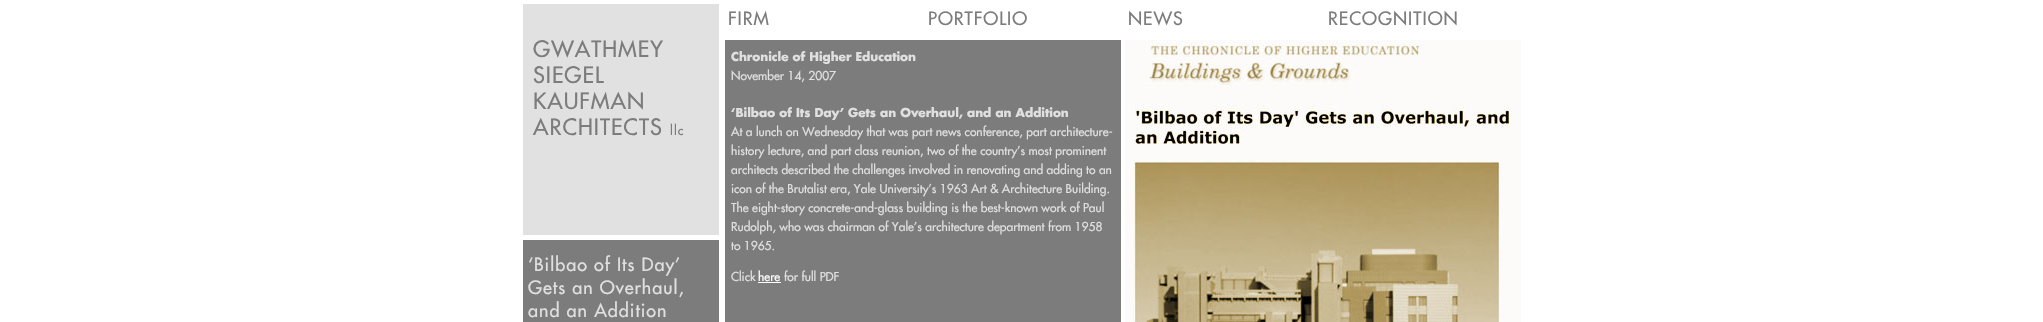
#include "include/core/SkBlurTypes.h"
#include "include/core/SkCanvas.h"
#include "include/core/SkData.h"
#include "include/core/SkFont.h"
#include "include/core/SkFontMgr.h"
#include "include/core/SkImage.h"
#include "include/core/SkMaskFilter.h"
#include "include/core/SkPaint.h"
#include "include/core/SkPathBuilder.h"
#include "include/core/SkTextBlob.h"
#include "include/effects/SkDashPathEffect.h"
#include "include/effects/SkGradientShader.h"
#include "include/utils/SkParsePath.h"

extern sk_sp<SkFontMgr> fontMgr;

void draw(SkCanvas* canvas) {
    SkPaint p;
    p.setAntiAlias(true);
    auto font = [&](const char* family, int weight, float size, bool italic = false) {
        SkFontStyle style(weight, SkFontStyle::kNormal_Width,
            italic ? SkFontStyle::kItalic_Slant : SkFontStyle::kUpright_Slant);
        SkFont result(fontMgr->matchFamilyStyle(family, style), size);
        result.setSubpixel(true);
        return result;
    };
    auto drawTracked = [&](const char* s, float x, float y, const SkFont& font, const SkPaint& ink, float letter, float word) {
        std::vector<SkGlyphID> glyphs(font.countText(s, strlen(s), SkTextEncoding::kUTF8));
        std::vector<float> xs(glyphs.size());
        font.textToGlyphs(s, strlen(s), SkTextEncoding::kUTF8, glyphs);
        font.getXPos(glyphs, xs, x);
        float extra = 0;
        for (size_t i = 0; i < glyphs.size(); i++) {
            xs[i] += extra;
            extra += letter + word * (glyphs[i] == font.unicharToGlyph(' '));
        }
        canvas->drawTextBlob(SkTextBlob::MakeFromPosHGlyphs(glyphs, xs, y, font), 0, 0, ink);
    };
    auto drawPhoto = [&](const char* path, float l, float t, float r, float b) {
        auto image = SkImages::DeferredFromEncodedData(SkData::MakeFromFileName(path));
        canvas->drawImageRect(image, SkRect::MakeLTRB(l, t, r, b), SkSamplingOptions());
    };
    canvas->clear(0xFFFFFFFF);
    p.setColor(0xFFE1E1E1);
    canvas->drawRect(SkRect::MakeLTRB(523, 4, 719, 235), p);
    auto font1 = font("Futura", 400, 22);
    p.setColor(0xFF7C7C7C);
    {
        const struct { const char* s; float x, y; } items[] = {
            {"GWATHMEY", 533, 57},
            {"SIEGEL", 533, 83},
            {"KAUFMAN", 533, 109},
            {"ARCHITECTS", 533, 135},
        };
        for (auto [s, x, y] : items) {
            drawTracked(s, x, y, font1, p, 1, 0);
        }
    }
    auto font2 = font("Futura", 400, 13);
    drawTracked("llc", 670, 135, font2, p, 1, 0);
    canvas->drawRect(SkRect::MakeLTRB(523, 240, 719, 322), p);
    auto font3 = font("Futura", 400, 18);
    p.setColor(0xFFE0E0E0);
    {
        const struct { const char* s; float x, y; } items[] = {
            {"‘Bilbao of Its Day’", 528, 271},
            {"Gets an Overhaul,", 528, 294},
            {"and an Addition", 528, 317},
        };
        for (auto [s, x, y] : items) {
            drawTracked(s, x, y, font3, p, 1, 0);
        }
    }
    p.setColor(0xFF7C7C7C);
    {
        const struct { const char* s; float x, y; } items[] = {
            {"FIRM", 728, 25},
            {"PORTFOLIO", 928, 25},
            {"NEWS", 1128, 25},
            {"RECOGNITION", 1328, 25},
        };
        for (auto [s, x, y] : items) {
            drawTracked(s, x, y, font3, p, 1, 0);
        }
    }
    canvas->drawRect(SkRect::MakeLTRB(725, 40, 1121, 322), p);
    auto font4 = font("Futura", 700, 12);
    p.setColor(0xFFE0E0E0);
    canvas->drawString("Chronicle of Higher Education", 731, 61, font4, p);
    auto font5 = font("Futura", 400, 12);
    canvas->drawString("November 14, 2007", 731, 80, font5, p);
    canvas->drawString("‘Bilbao of Its Day’ Gets an Overhaul, and an Addition", 731, 117, font4, p);
    {
        const struct { const char* s; float x, y; } items[] = {
            {"At a lunch on Wednesday that was part news conference, part architecture-", 731, 136},
            {"history lecture, and part class reunion, two of the country’s most prominent", 731, 155},
            {"architects described the challenges involved in renovating and adding to an", 731, 174},
            {"icon of the Brutalist era, Yale University’s 1963 Art & Architecture Building.", 731, 193},
            {"The eight-story concrete-and-glass building is the best-known work of Paul", 731, 212},
            {"Rudolph, who was chairman of Yale’s architecture department from 1958", 731, 231},
            {"to 1965.", 731, 250},
            {"Click", 731, 281},
        };
        for (auto [s, x, y] : items) {
            canvas->drawString(s, x, y, font5, p);
        }
    }
    p.setColor(0xFFFFFFFF);
    canvas->drawString("here", 758, 281, font5, p);
    canvas->drawRect(SkRect::MakeLTRB(758, 282, 781, 283), p);
    p.setColor(0xFFE0E0E0);
    canvas->drawString("for full PDF", 784, 281, font5, p);
    drawPhoto("media/1.png", 1125, 40, 1521, 322);
}
